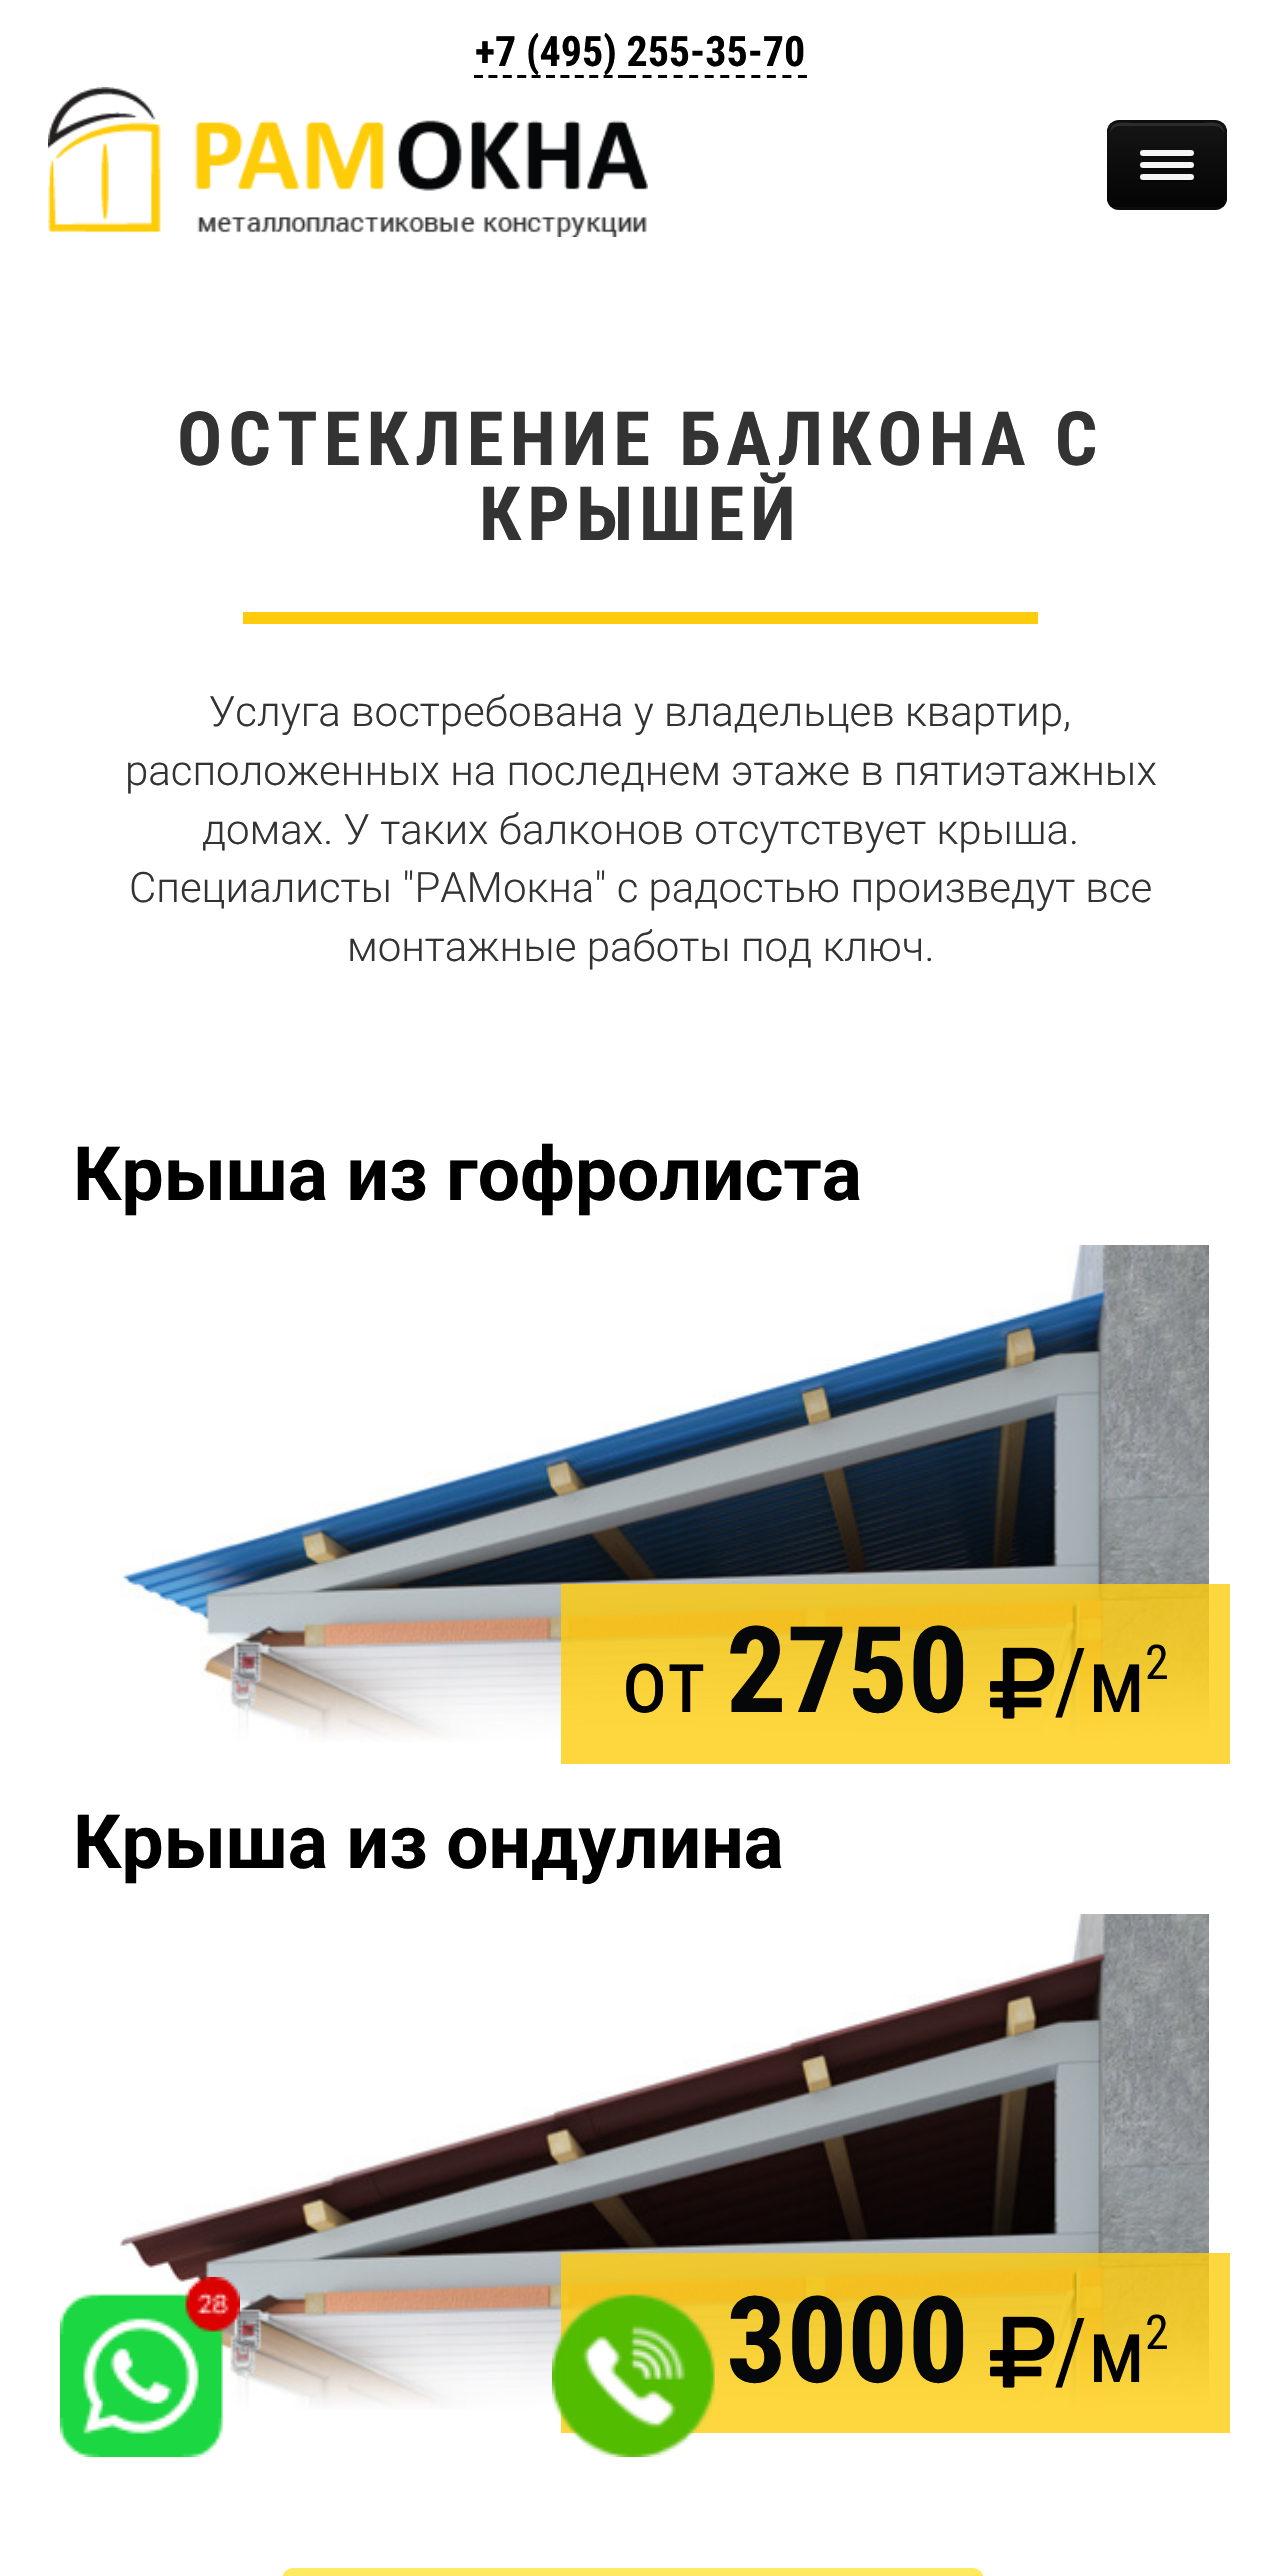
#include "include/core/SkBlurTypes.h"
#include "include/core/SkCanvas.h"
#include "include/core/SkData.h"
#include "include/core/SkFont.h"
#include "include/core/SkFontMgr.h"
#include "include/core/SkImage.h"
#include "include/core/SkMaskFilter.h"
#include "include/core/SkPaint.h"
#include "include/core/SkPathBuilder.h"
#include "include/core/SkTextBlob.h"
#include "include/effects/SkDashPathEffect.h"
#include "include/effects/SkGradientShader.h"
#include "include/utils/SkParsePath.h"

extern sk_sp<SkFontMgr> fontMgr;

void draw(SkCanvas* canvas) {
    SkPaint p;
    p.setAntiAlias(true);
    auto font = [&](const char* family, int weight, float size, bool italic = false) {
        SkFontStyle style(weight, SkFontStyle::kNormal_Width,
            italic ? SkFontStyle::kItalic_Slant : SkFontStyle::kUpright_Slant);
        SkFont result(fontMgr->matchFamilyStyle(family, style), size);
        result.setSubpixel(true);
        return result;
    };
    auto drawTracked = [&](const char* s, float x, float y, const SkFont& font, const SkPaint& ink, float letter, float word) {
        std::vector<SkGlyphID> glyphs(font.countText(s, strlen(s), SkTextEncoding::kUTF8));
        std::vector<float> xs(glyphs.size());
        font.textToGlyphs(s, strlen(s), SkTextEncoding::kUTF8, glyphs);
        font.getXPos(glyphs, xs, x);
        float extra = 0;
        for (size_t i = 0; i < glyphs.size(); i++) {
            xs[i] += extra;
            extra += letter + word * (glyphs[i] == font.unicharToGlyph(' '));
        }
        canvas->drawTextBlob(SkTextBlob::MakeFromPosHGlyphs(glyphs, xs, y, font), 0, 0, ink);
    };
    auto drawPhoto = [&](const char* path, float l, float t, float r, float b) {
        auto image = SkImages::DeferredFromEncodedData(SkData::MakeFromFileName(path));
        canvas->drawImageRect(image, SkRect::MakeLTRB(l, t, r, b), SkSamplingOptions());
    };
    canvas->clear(0xFFFFFFFF);
    p.setStyle(SkPaint::kStroke_Style);
    p.setStrokeWidth(3);
    p.setColor(0xFF000000);
    p.setPathEffect(SkDashPathEffect::Make({{9, 5.4f}}, 0));
    canvas->drawPath(SkPathBuilder().moveTo(474, 76.5f).lineTo(627, 76.5f).detach(), p);
    p.setPathEffect(nullptr);
    p.setPathEffect(SkDashPathEffect::Make({{9, 6.54f}}, 0));
    canvas->drawPath(SkPathBuilder().moveTo(627, 76.5f).lineTo(807, 76.5f).detach(), p);
    p.setPathEffect(nullptr);
    auto font1 = font("Roboto Condensed", 700, 42);
    p.setStyle(SkPaint::kFill_Style);
    canvas->drawString("+7 (495) 255-35-70", 475, 66, font1, p);
    drawPhoto("media/1.png", 48, 87, 648, 237);
    p.setColor(0xFF0E0E0E);
    canvas->drawRoundRect(SkRect::MakeLTRB(1107, 120, 1227, 210), 12, 12, p);
    canvas->save();
    canvas->clipPath(SkPathBuilder().moveTo(1119, 120).lineTo(1215, 120).cubicTo(1221.5f, 120, 1227, 125.5f, 1227, 132).lineTo(1227, 198).cubicTo(1227, 204.5f, 1221.5f, 210, 1215, 210).lineTo(1119, 210).cubicTo(1112.5f, 210, 1107, 204.5f, 1107, 198).lineTo(1107, 132).cubicTo(1107, 125.5f, 1112.5f, 120, 1119, 120).close().detach(), true);
    {
        const SkColor colors[] = {0xFF151515, 0xFF040404};
        const float stops[] = {0, 1};
        const SkPoint ends[] = {{1167, 123}, {1167, 207}};
        p.setShader(SkGradientShader::MakeLinear(ends, colors, stops, 2, SkTileMode::kClamp));
        p.setAlpha(255);
    }
    canvas->drawRect(SkRect::MakeLTRB(1107, 123, 1227, 207), p);
    canvas->restore();
    p.setShader(nullptr);
    p.setColor(0xFF2C2C2C);
    canvas->drawPath(SkPathBuilder().moveTo(1119, 126).lineTo(1215, 126).cubicTo(1220, 126, 1224, 130, 1224, 135).cubicTo(1224, 119, 1212, 123, 1199, 123).lineTo(1135, 123).cubicTo(1122, 123, 1110, 119, 1110, 135).cubicTo(1110, 130, 1114, 126, 1119, 126).close().detach(), p);
    p.setStyle(SkPaint::kStroke_Style);
    p.setColor(0x40000000);
    canvas->drawPath(SkPathBuilder().moveTo(1222.5f, 205.5f).cubicTo(1220.5f, 207.5f, 1218, 208.5f, 1215, 208.5f).lineTo(1119, 208.5f).cubicTo(1116, 208.5f, 1113.5f, 207.5f, 1111.5f, 205.5f).detach(), p);
    p.setColor(0x1A000000);
    canvas->drawPath(SkPathBuilder().moveTo(1111.5f, 205.5f).cubicTo(1109.5f, 203.5f, 1108.5f, 201, 1108.5f, 198).lineTo(1108.5f, 132).cubicTo(1108.5f, 129, 1109.5f, 126.5f, 1111.5f, 124.5f).cubicTo(1113.5f, 122.5f, 1116, 121.5f, 1119, 121.5f).lineTo(1215, 121.5f).cubicTo(1218, 121.5f, 1220.5f, 122.5f, 1222.5f, 124.5f).cubicTo(1224.5f, 126.5f, 1225.5f, 129, 1225.5f, 132).lineTo(1225.5f, 198).cubicTo(1225.5f, 201, 1224.5f, 203.5f, 1222.5f, 205.5f).detach(), p);
    p.setStyle(SkPaint::kFill_Style);
    p.setColor(0xFF0B0B0B);
    canvas->drawPath(SkPathBuilder().moveTo(1140, 154).cubicTo(1137, 161, 1151, 159, 1151, 159).lineTo(1183, 159).cubicTo(1183, 159, 1197, 161, 1194, 154).cubicTo(1193, 155, 1192, 156, 1191, 156).lineTo(1143, 156).cubicTo(1142, 156, 1141, 155, 1140, 154).close().detach(), p);
    p.setColor(0xFFF5F5F5);
    canvas->drawRoundRect(SkRect::MakeLTRB(1140, 150, 1194, 156), 3, 3, p);
    p.setColor(0xFF090909);
    canvas->drawPath(SkPathBuilder().moveTo(1140, 166).cubicTo(1137, 173, 1151, 171, 1151, 171).lineTo(1183, 171).cubicTo(1183, 171, 1197, 173, 1194, 166).cubicTo(1193, 167, 1192, 168, 1191, 168).lineTo(1143, 168).cubicTo(1142, 168, 1141, 167, 1140, 166).close().detach(), p);
    p.setColor(0xFFF5F5F5);
    canvas->drawRoundRect(SkRect::MakeLTRB(1140, 162, 1194, 168), 3, 3, p);
    p.setColor(0xFF070707);
    canvas->drawPath(SkPathBuilder().moveTo(1140, 178).cubicTo(1137, 185, 1151, 183, 1151, 183).lineTo(1183, 183).cubicTo(1183, 183, 1197, 185, 1194, 178).cubicTo(1193, 179, 1192, 180, 1191, 180).lineTo(1143, 180).cubicTo(1142, 180, 1141, 179, 1140, 178).close().detach(), p);
    p.setColor(0xFFF5F5F5);
    canvas->drawRoundRect(SkRect::MakeLTRB(1140, 174, 1194, 180), 3, 3, p);
    auto font2 = font("Roboto Condensed", 700, 75);
    p.setColor(0xFF333333);
    drawTracked("ОСТЕКЛЕНИЕ БАЛКОНА С", 177, 465, font2, p, 6, 0);
    drawTracked("КРЫШЕЙ", 479, 540, font2, p, 6, 0);
    p.setColor(0xFFFECC0C);
    canvas->drawRect(SkRect::MakeLTRB(243, 612, 1038, 624), p);
    auto font3 = font("Roboto", 300, 42);
    p.setColor(0xFF333333);
    {
        const struct { const char* s; float x, y; } items[] = {
            {"Услуга востребована у владельцев квартир,", 209, 726},
            {"расположенных на последнем этаже в пятиэтажных", 125, 785},
            {"домах. У таких балконов отсутствует крыша.", 202, 844},
            {"Специалисты \"РАМокна\" с радостью произведут все", 129, 902},
            {"монтажные работы под ключ.", 347, 961},
        };
        for (auto [s, x, y] : items) {
            canvas->drawString(s, x, y, font3, p);
        }
    }
    auto font4 = font("Roboto", 700, 75);
    p.setColor(0xFF000000);
    canvas->drawString("Крыша из гофролиста", 73, 1200, font4, p);
    drawPhoto("media/2.png", 120, 1245, 1209, 1743);
    p.setColor(0xCCFECC0C);
    canvas->drawRect(SkRect::MakeLTRB(561, 1584, 1230, 1764), p);
    auto font5 = font("Roboto Condensed", 400, 90);
    p.setColor(0xFF000000);
    canvas->drawString("от", 622, 1712, font5, p);
    auto font6 = font("Roboto Condensed", 700, 120);
    p.setColor(0xFF050708);
    canvas->drawString("2750", 726, 1712, font6, p);
    drawPhoto("media/3.png", 990, 1647, 1055, 1719);
    p.setColor(0xFF000000);
    canvas->drawString("/м", 1054, 1712, font5, p);
    auto font7 = font("Roboto Condensed", 400, 48);
    canvas->drawString("2", 1145, 1679, font7, p);
    canvas->drawString("Крыша из ондулина", 73, 1868, font4, p);
    drawPhoto("media/4.png", 119, 1914, 1209, 2410);
    p.setColor(0xCCFECC0C);
    canvas->drawRect(SkRect::MakeLTRB(561, 2253, 1230, 2433), p);
    p.setColor(0xFF050708);
    canvas->drawString("3000", 726, 2382, font6, p);
    drawPhoto("media/5.png", 990, 2316, 1055, 2388);
    p.setColor(0xFF000000);
    canvas->drawString("/м", 1054, 2382, font5, p);
    canvas->drawString("2", 1145, 2349, font7, p);
    {
        const SkColor colors[] = {0xFFFFEA63, 0xFFFFE95F, 0xFFFFE455, 0xFFFFE246, 0xFFFFDF44, 0xFFFDD31D, 0xFFFED21B, 0xFFFFD011, 0xFFFDCE0F};
        const float stops[] = {0, 0.11f, 0.24f, 0.35f, 0.42f, 0.76f, 0.82f, 0.9f, 1};
        const SkPoint ends[] = {{633, 2568}, {633, 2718}};
        p.setShader(SkGradientShader::MakeLinear(ends, colors, stops, 9, SkTileMode::kClamp));
        p.setAlpha(255);
    }
    canvas->drawRoundRect(SkRect::MakeLTRB(282, 2568, 984, 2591), 15, 15, p);
    drawPhoto("media/6.png", 60, 2277, 240, 2457);
    drawPhoto("media/7.png", 552, 2294, 715, 2457);
}
